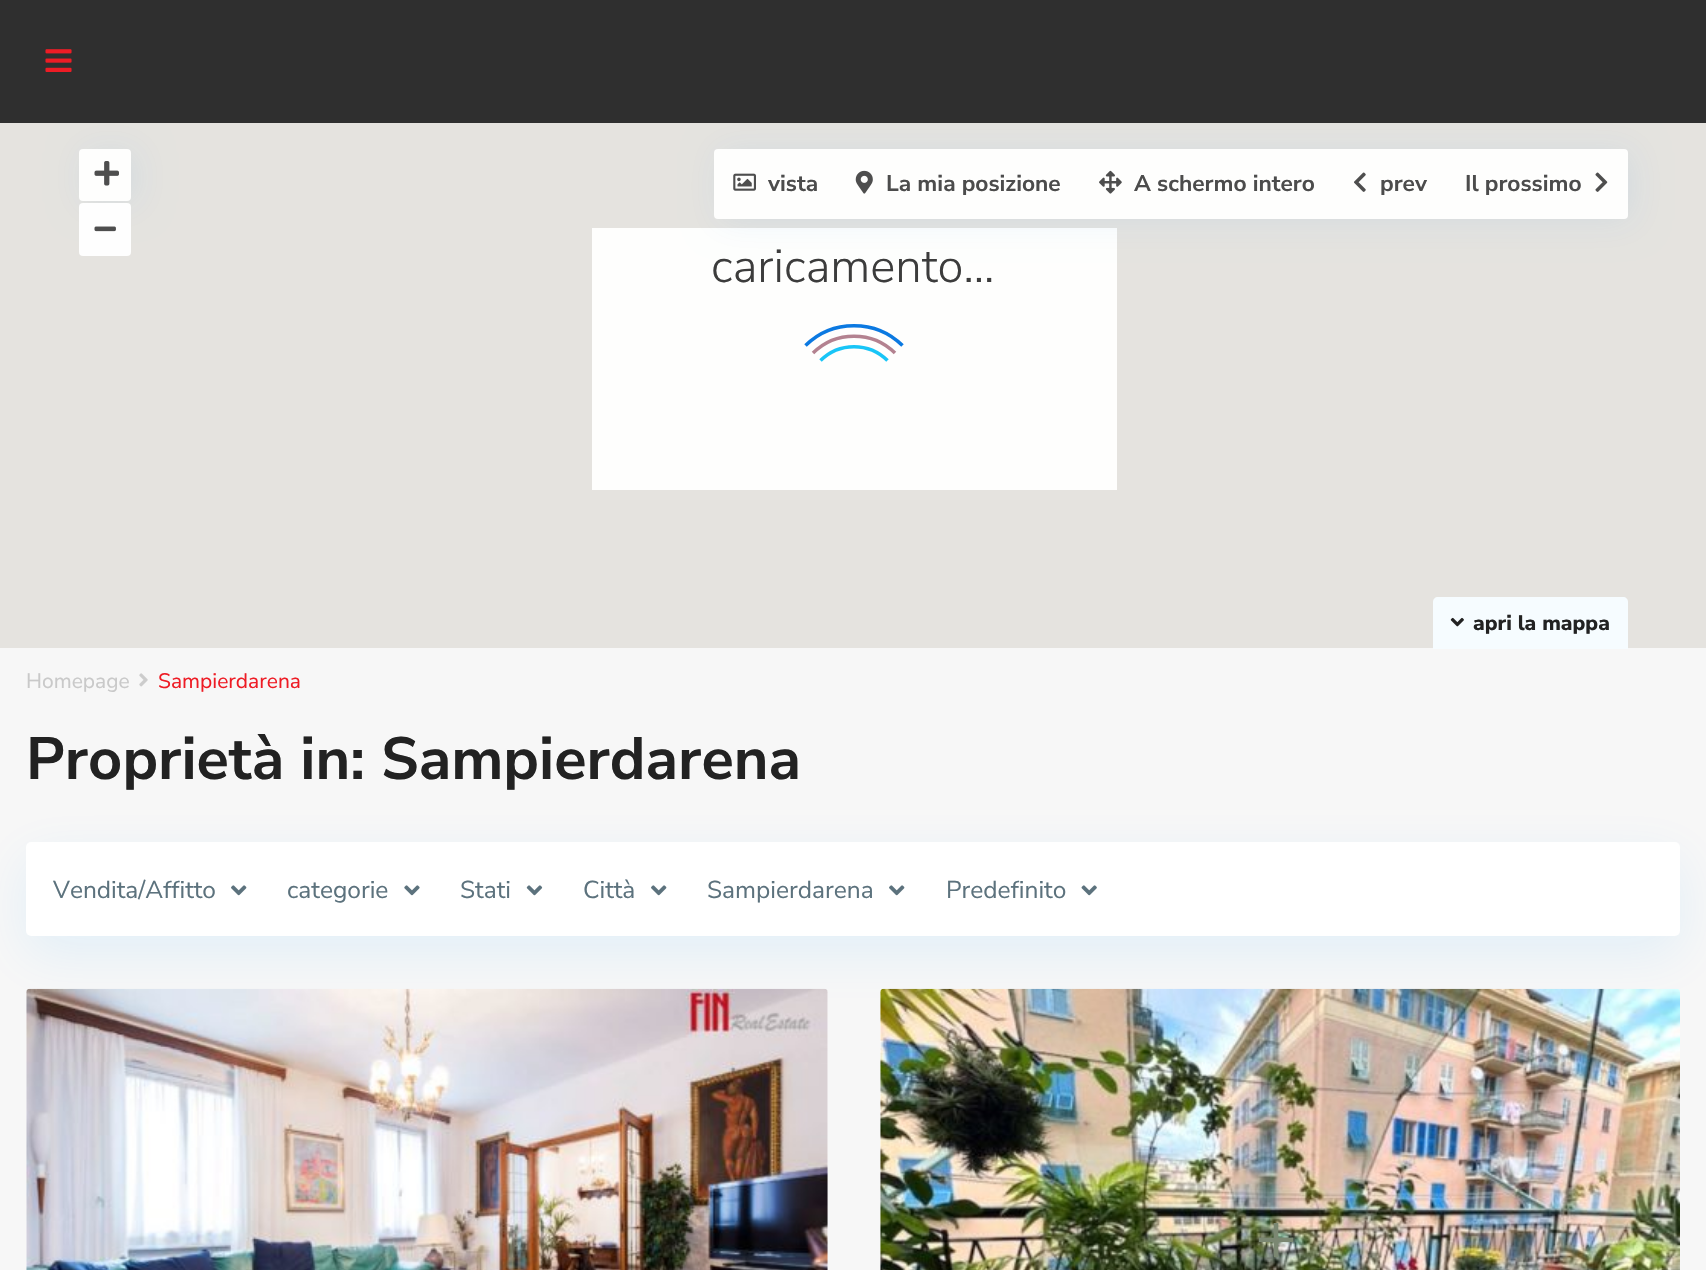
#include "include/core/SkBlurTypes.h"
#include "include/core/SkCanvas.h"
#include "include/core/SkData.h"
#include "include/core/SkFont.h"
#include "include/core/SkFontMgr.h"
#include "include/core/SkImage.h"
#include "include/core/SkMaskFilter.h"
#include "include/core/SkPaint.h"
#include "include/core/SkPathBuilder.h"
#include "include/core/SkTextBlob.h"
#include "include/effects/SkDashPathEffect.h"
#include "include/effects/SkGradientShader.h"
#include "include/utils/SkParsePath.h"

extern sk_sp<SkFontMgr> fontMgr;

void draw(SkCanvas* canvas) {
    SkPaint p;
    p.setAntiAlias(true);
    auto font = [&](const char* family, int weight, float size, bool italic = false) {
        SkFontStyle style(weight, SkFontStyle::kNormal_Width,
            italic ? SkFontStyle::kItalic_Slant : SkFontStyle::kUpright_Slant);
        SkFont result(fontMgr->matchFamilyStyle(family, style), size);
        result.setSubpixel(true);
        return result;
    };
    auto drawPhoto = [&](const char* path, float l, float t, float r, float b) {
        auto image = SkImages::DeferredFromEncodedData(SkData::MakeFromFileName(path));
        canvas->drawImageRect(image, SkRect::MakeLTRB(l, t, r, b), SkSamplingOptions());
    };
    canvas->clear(0xFFF7F7F7);
    p.setColor(0xFFE5E3DF);
    canvas->drawRect(SkRect::MakeLTRB(0, 123, 1706, 648), p);
    p.setColor(0x14006EE1);
    p.setMaskFilter(SkMaskFilter::MakeBlur(kNormal_SkBlurStyle, 17.5f));
    canvas->drawRoundRect(SkRect::MakeLTRB(84, 151, 137, 203), 4, 4, p);
    p.setMaskFilter(nullptr);
    p.setColor(0xFFFEFEFD);
    canvas->drawRect(SkRect::MakeLTRB(592, 228, 1117, 490), p);
    p.setColor(0x14006EE1);
    p.setMaskFilter(SkMaskFilter::MakeBlur(kNormal_SkBlurStyle, 17.5f));
    canvas->drawRoundRect(SkRect::MakeLTRB(719, 151, 1633, 221), 4, 4, p);
    p.setMaskFilter(nullptr);
    p.setColor(0xFF2F2F2F);
    canvas->drawRect(SkRect::MakeLTRB(0, 0, 1706, 123), p);
    drawPhoto("media/1.png", 45, 49, 72, 72);
    p.setColor(0xFFFEFEFD);
    canvas->drawRoundRect(SkRect::MakeLTRB(79, 149, 131, 201), 4, 4, p);
    drawPhoto("media/2.png", 94, 161, 119, 186);
    canvas->drawRoundRect(SkRect::MakeLTRB(714, 149, 1628, 219), 4, 4, p);
    drawPhoto("media/3.png", 733, 173, 756, 191);
    auto font1 = font("Nunito Sans", 700, 22.75f);
    p.setColor(0xFF4C4C4C);
    canvas->drawString("vista", 768, 191, font1, p);
    drawPhoto("media/4.png", 855, 170, 873, 194);
    canvas->drawString("La mia posizione", 886, 191, font1, p);
    drawPhoto("media/5.png", 1099, 170, 1122, 194);
    canvas->drawString("A schermo intero", 1134, 191, font1, p);
    drawPhoto("media/6.png", 1354, 172, 1366, 192);
    canvas->drawString("prev", 1380, 191, font1, p);
    canvas->drawString("Il prossimo", 1465, 191, font1, p);
    drawPhoto("media/7.png", 1595, 172, 1608, 192);
    p.setColor(0xF2FFFFFF);
    canvas->drawRoundRect(SkRect::MakeLTRB(79, 203, 131, 256), 4, 4, p);
    drawPhoto("media/8.png", 94, 226, 116, 232);
    p.setColor(0xFFF6FCFF);
    canvas->drawPath(SkPathBuilder().moveTo(1438, 597).lineTo(1623, 597).cubicTo(1626, 597, 1628, 599, 1628, 602).lineTo(1628, 649).lineTo(1433, 649).lineTo(1433, 602).cubicTo(1433, 599, 1435, 597, 1438, 597).close().detach(), p);
    drawPhoto("media/9.png", 1450, 617, 1464, 627);
    auto font2 = font("Nunito Sans", 800, 21);
    p.setColor(0xFF222222);
    canvas->drawString("apri la mappa", 1473, 630, font2, p);
    auto font3 = font("Nunito Sans", 300, 47.25f);
    p.setColor(0xFF3C3C3C);
    canvas->drawString("caricamento...", 711, 282, font3, p);
    p.setStyle(SkPaint::kStroke_Style);
    p.setStrokeWidth(3.5f);
    p.setColor(0xFF0B79E1);
    canvas->drawPath(SkPathBuilder().moveTo(805.5f, 345.5f).cubicTo(832, 319, 876, 319, 902.5f, 345.5f).detach(), p);
    p.setColor(0xFFB38290);
    canvas->drawPath(SkPathBuilder().moveTo(813, 353).cubicTo(835.5f, 330.5f, 872.5f, 330.5f, 895, 353).detach(), p);
    p.setColor(0xFF18C5F7);
    canvas->drawPath(SkPathBuilder().moveTo(820.5f, 360.5f).cubicTo(839, 342, 869, 342, 887.5f, 360.5f).detach(), p);
    auto font4 = font("Nunito Sans", 400, 21);
    p.setStyle(SkPaint::kFill_Style);
    p.setColor(0xFFC9C9C9);
    canvas->drawString("Homepage", 26, 688, font4, p);
    drawPhoto("media/10.png", 139, 673, 148, 687);
    p.setColor(0xFFEE1C25);
    canvas->drawString("Sampierdarena", 158, 688, font4, p);
    auto font5 = font("Nunito Sans", 700, 59.5f);
    p.setColor(0xFF222222);
    canvas->drawString("Proprietà in: Sampierdarena", 26, 779, font5, p);
    p.setColor(0x170798FF);
    p.setMaskFilter(SkMaskFilter::MakeBlur(kNormal_SkBlurStyle, 27));
    canvas->drawRoundRect(SkRect::MakeLTRB(26, 859, 1680, 954), 5, 5, p);
    p.setMaskFilter(nullptr);
    p.setColor(0xFFFFFFFF);
    canvas->drawRoundRect(SkRect::MakeLTRB(26, 842, 1680, 936), 5, 5, p);
    auto font6 = font("Nunito Sans", 400, 24.5f);
    p.setColor(0xFF5C727D);
    canvas->drawString("Vendita/Affitto", 53, 898, font6, p);
    drawPhoto("media/11.png", 231, 885, 247, 896);
    canvas->drawString("categorie", 287, 898, font6, p);
    drawPhoto("media/12.png", 404, 885, 420, 896);
    canvas->drawString("Stati", 460, 898, font6, p);
    drawPhoto("media/13.png", 526, 885, 543, 896);
    canvas->drawString("Città", 583, 898, font6, p);
    drawPhoto("media/11.png", 651, 885, 667, 896);
    canvas->drawString("Sampierdarena", 707, 898, font6, p);
    drawPhoto("media/11.png", 889, 885, 905, 896);
    canvas->drawString("Predefinito", 946, 898, font6, p);
    drawPhoto("media/14.png", 1081, 885, 1097, 896);
    p.setColor(0xFFFFFFFF);
    canvas->drawPath(SkPathBuilder().moveTo(30, 989).lineTo(824, 989).cubicTo(826, 989, 828, 991, 828, 993).lineTo(828, 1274).lineTo(26, 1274).lineTo(26, 993).cubicTo(26, 991, 28, 989, 30, 989).close().detach(), p);
    drawPhoto("media/15.png", 26, 988, 828, 1270);
    canvas->drawPath(SkPathBuilder().moveTo(884, 989).lineTo(1676, 989).cubicTo(1678, 989, 1680, 991, 1680, 993).lineTo(1680, 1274).lineTo(880, 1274).lineTo(880, 993).cubicTo(880, 991, 882, 989, 884, 989).close().detach(), p);
    drawPhoto("media/16.png", 880, 988, 1680, 1270);
    auto font7 = font("Nunito Sans", 400, 70);
    p.setColor(0xFF7B8772);
    canvas->drawString("+", 1255, 1260, font7, p);
}
